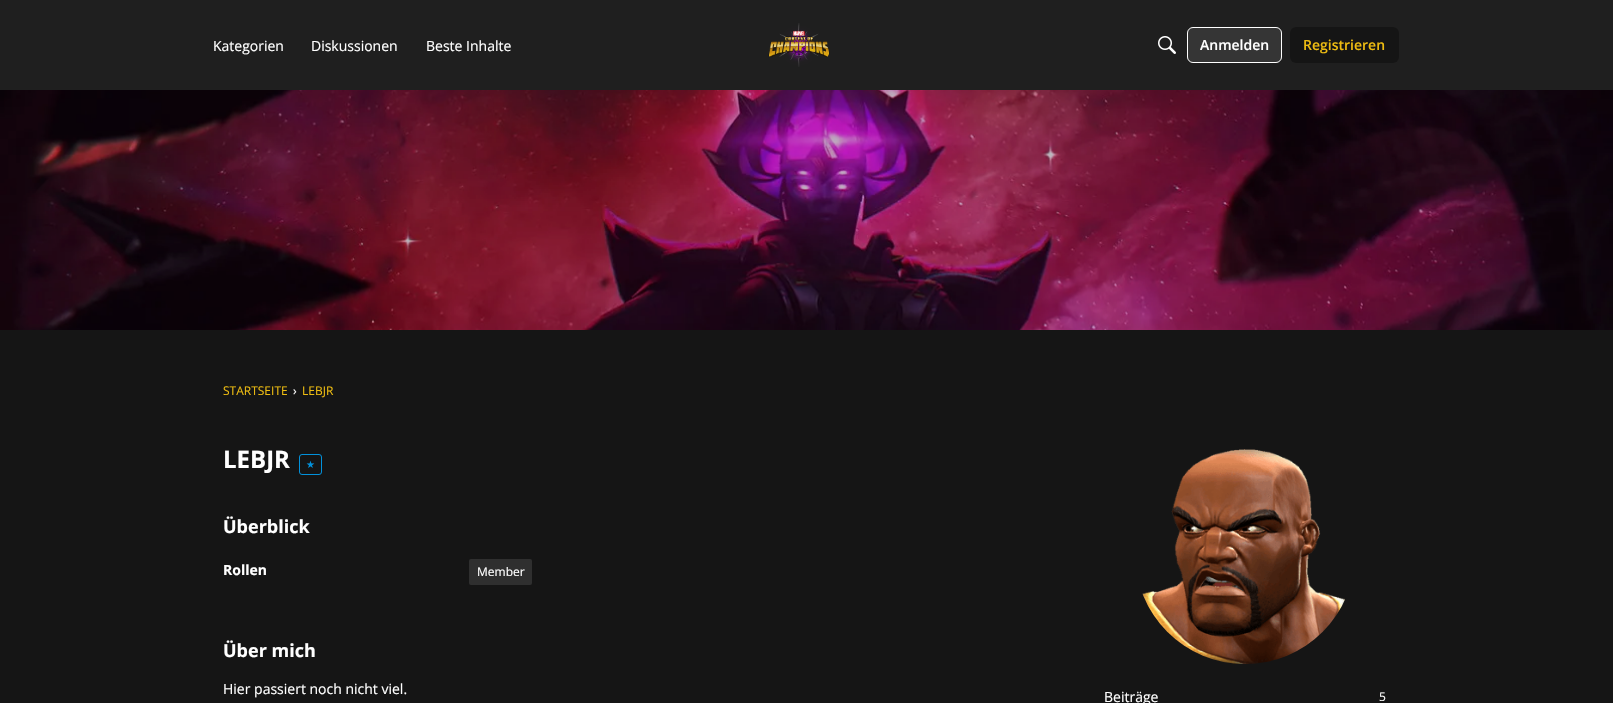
#include "include/core/SkBlurTypes.h"
#include "include/core/SkCanvas.h"
#include "include/core/SkData.h"
#include "include/core/SkFont.h"
#include "include/core/SkFontMgr.h"
#include "include/core/SkImage.h"
#include "include/core/SkMaskFilter.h"
#include "include/core/SkPaint.h"
#include "include/core/SkPathBuilder.h"
#include "include/core/SkTextBlob.h"
#include "include/effects/SkDashPathEffect.h"
#include "include/effects/SkGradientShader.h"
#include "include/utils/SkParsePath.h"

extern sk_sp<SkFontMgr> fontMgr;

void draw(SkCanvas* canvas) {
    SkPaint p;
    p.setAntiAlias(true);
    auto font = [&](const char* family, int weight, float size, bool italic = false) {
        SkFontStyle style(weight, SkFontStyle::kNormal_Width,
            italic ? SkFontStyle::kItalic_Slant : SkFontStyle::kUpright_Slant);
        SkFont result(fontMgr->matchFamilyStyle(family, style), size);
        result.setSubpixel(true);
        return result;
    };
    auto drawPhoto = [&](const char* path, float l, float t, float r, float b) {
        auto image = SkImages::DeferredFromEncodedData(SkData::MakeFromFileName(path));
        canvas->drawImageRect(image, SkRect::MakeLTRB(l, t, r, b), SkSamplingOptions());
    };
    canvas->clear(0xFF151515);
    p.setColor(0xFF1F1F1F);
    canvas->drawRect(SkRect::MakeLTRB(0, 0, 1613, 90), p);
    auto font1 = font("Open Sans", 400, 14);
    p.setColor(0xFFFFFFFF);
    {
        const struct { const char* s; float x, y; } items[] = {
            {"Kategorien", 213, 51},
            {"Diskussionen", 311, 51},
            {"Beste Inhalte", 426, 51},
        };
        for (auto [s, x, y] : items) {
            canvas->drawString(s, x, y, font1, p);
        }
    }
    drawPhoto("media/1.png", 768, 23, 830, 67);
    drawPhoto("media/2.png", 1158, 36, 1176, 54);
    p.setColor(0xFF353535);
    canvas->drawRoundRect(SkRect::MakeLTRB(1187.5f, 27.5f, 1281.5f, 62.5f), 5.5f, 5.5f, p);
    p.setStyle(SkPaint::kStroke_Style);
    p.setStrokeWidth(1);
    p.setColor(0xFFFFFFFF);
    canvas->drawRoundRect(SkRect::MakeLTRB(1187.5f, 27.5f, 1281.5f, 62.5f), 5.5f, 5.5f, p);
    auto font2 = font("Open Sans", 600, 14);
    p.setStyle(SkPaint::kFill_Style);
    canvas->drawString("Anmelden", 1200, 50, font2, p);
    p.setColor(0xFF151515);
    canvas->drawRoundRect(SkRect::MakeLTRB(1290, 27, 1399, 63), 6, 6, p);
    p.setColor(0xFFEEBC11);
    canvas->drawString("Registrieren", 1303, 50, font2, p);
    drawPhoto("media/3.png", 0, 90, 1613, 330);
    auto font3 = font("Open Sans", 400, 12);
    canvas->drawString("STARTSEITE", 223, 395, font3, p);
    p.setColor(0xFFFFFFFF);
    canvas->drawString("›", 293, 395, font3, p);
    p.setColor(0xFFEEBC11);
    canvas->drawString("LEBJR", 302, 395, font3, p);
    auto font4 = font("Open Sans", 700, 24);
    p.setColor(0xFFFFFFFF);
    canvas->drawString("LEBJR", 223, 468, font4, p);
    p.setStyle(SkPaint::kStroke_Style);
    p.setColor(0xFF0291DB);
    canvas->drawRoundRect(SkRect::MakeLTRB(299.5f, 454.5f, 321.5f, 474.5f), 2.5f, 2.5f, p);
    auto font5 = font("DejaVu Sans", 400, 10);
    p.setStyle(SkPaint::kFill_Style);
    canvas->drawString("★", 306, 468, font5, p);
    auto font6 = font("Open Sans", 700, 18);
    p.setColor(0xFFFFFFFF);
    canvas->drawString("Überblick", 223, 533, font6, p);
    auto font7 = font("Open Sans", 700, 14);
    canvas->drawString("Rollen", 223, 575, font7, p);
    p.setColor(0xFF2F2F2F);
    canvas->drawRoundRect(SkRect::MakeLTRB(469, 559, 532, 585), 2, 2, p);
    p.setColor(0xFFFFFFFF);
    canvas->drawString("Member", 477, 576, font3, p);
    canvas->drawString("Über mich", 223, 657, font6, p);
    canvas->drawString("Hier passiert noch nicht viel.", 223, 694, font1, p);
    drawPhoto("media/4.png", 1142, 449, 1345, 664);
    canvas->drawString("Beiträge", 1104, 702, font1, p);
    canvas->drawString("5", 1379, 701, font3, p);
}
